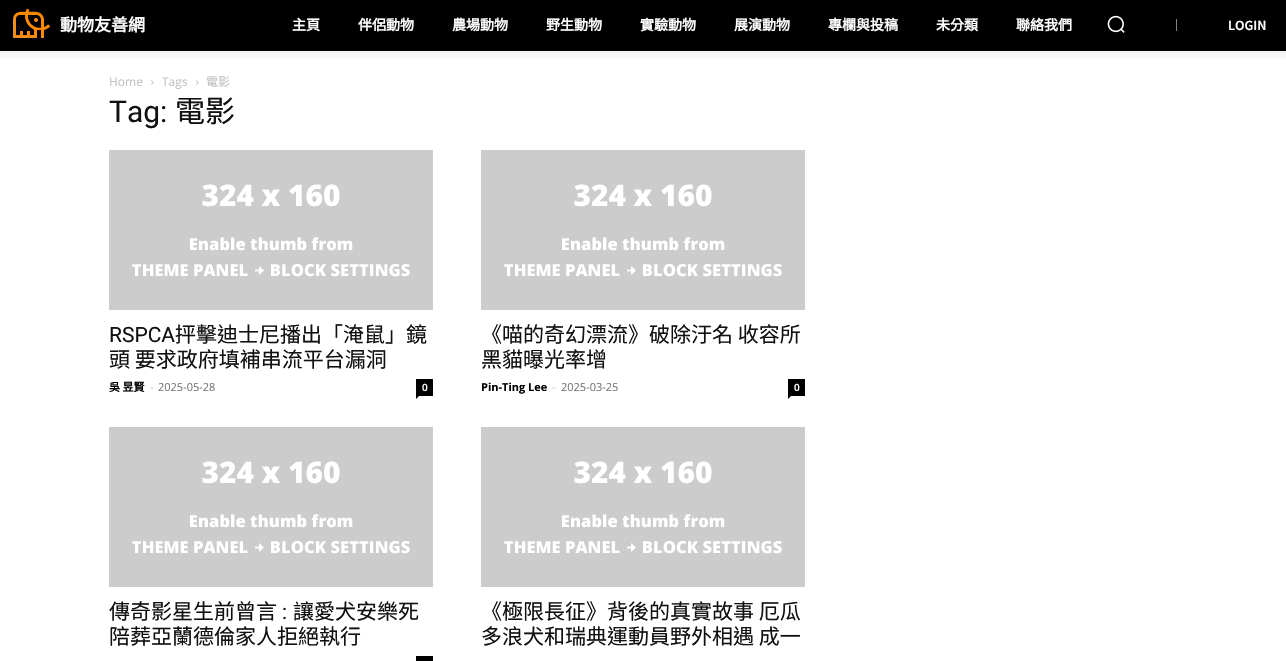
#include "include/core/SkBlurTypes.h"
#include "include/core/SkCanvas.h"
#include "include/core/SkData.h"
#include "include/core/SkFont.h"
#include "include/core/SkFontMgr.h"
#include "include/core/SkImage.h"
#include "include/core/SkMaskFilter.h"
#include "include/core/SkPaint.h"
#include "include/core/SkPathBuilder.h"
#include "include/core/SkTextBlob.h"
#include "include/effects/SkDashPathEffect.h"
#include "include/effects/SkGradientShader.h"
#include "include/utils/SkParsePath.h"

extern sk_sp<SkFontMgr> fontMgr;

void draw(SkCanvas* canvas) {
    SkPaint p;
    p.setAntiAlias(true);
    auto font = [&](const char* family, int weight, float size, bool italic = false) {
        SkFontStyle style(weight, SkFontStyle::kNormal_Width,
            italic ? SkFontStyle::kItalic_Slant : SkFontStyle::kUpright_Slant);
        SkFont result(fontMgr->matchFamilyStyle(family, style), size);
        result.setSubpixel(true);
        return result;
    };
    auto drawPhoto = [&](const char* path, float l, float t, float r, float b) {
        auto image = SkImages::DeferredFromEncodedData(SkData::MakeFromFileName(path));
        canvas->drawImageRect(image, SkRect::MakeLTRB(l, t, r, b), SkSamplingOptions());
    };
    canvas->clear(0xFFFFFFFF);
    p.setColor(0xFF000000);
    canvas->drawRect(SkRect::MakeLTRB(0, 0, 1286, 51), p);
    drawPhoto("media/3.png", 151, 80, 154, 85);
    drawPhoto("media/3.png", 196, 80, 199, 85);
    canvas->save();
    canvas->clipRect(SkRect::MakeLTRB(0, 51, 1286, 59));
    p.setColor(0x1A000000);
    p.setMaskFilter(SkMaskFilter::MakeBlur(kNormal_SkBlurStyle, 10));
    canvas->drawRect(SkRect::MakeLTRB(-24, 0, 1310, 51), p);
    p.setMaskFilter(nullptr);
    canvas->restore();
    drawPhoto("media/1.png", 13, 8, 50, 38);
    auto font1 = font("Noto Sans CJK TC", 700, 17);
    p.setColor(0xFFFFFFFF);
    canvas->drawString("動物友善網", 60, 31, font1, p);
    auto font2 = font("Noto Sans CJK TC", 700, 14);
    {
        const struct { const char* s; float x, y; } items[] = {
            {"主頁", 292, 30},
            {"伴侶動物", 358, 30},
            {"農場動物", 452, 30},
            {"野生動物", 546, 30},
            {"實驗動物", 640, 30},
            {"展演動物", 734, 30},
            {"專欄與投稿", 828, 30},
            {"未分類", 936, 30},
            {"聯絡我們", 1016, 30},
        };
        for (auto [s, x, y] : items) {
            canvas->drawString(s, x, y, font2, p);
        }
    }
    drawPhoto("media/2.png", 1107, 15, 1125, 33);
    p.setColor(0xFF808080);
    canvas->drawRect(SkRect::MakeLTRB(1176, 19, 1177, 31), p);
    auto font3 = font("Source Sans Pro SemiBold", 600, 14);
    p.setColor(0xFFFFFFFF);
    canvas->drawString("LOGIN", 1228, 30, font3, p);
    auto font4 = font("Open Sans", 400, 12);
    p.setColor(0xFFC3C3C3);
    canvas->drawString("Home", 109, 86, font4, p);
    canvas->drawString("Tags", 162, 86, font4, p);
    auto font5 = font("Noto Sans CJK TC", 400, 12);
    canvas->drawString("電影", 206, 86, font5, p);
    auto font6 = font("Roboto", 400, 30);
    p.setColor(0xFF111111);
    canvas->drawString("Tag:", 109, 122, font6, p);
    auto font7 = font("Noto Sans CJK TC", 400, 30);
    canvas->drawString("電影", 175, 122, font7, p);
    drawPhoto("media/4.png", 109, 150, 433, 310);
    auto font8 = font("Roboto", 400, 21);
    canvas->drawString("RSPCA", 109, 342, font8, p);
    auto font9 = font("Noto Sans CJK TC", 400, 21);
    canvas->drawString("抨擊迪士尼播出「淹鼠」鏡", 175, 342, font9, p);
    canvas->drawString("頭 要求政府填補串流平台漏洞", 109, 367, font9, p);
    auto font10 = font("Noto Sans CJK TC", 700, 11);
    p.setColor(0xFF000000);
    canvas->drawString("吳 昱賢", 109, 391, font10, p);
    auto font11 = font("Open Sans", 400, 11);
    p.setColor(0xFFCCCCCC);
    canvas->drawString("-", 150, 391, font11, p);
    p.setColor(0xFF767676);
    canvas->drawString("2025-05-28", 158, 391, font11, p);
    p.setColor(0xFF000000);
    canvas->drawRect(SkRect::MakeLTRB(416, 379, 433, 396), p);
    auto font12 = font("Open Sans", 600, 10);
    p.setColor(0xFFFFFFFF);
    canvas->drawString("0", 422, 391, font12, p);
    p.setColor(0xFF000000);
    canvas->drawPath(SkPathBuilder().moveTo(416, 396).lineTo(419, 396).lineTo(416, 399).close().detach(), p);
    drawPhoto("media/4.png", 481, 150, 805, 310);
    p.setColor(0xFF111111);
    canvas->drawString("《喵的奇幻漂流》破除汙名 收容所", 481, 342, font9, p);
    canvas->drawString("黑貓曝光率增", 481, 367, font9, p);
    auto font13 = font("Open Sans", 700, 11);
    p.setColor(0xFF000000);
    canvas->drawString("Pin-Ting Lee", 481, 391, font13, p);
    p.setColor(0xFFCCCCCC);
    canvas->drawString("-", 552, 391, font11, p);
    p.setColor(0xFF767676);
    canvas->drawString("2025-03-25", 561, 391, font11, p);
    p.setColor(0xFF000000);
    canvas->drawRect(SkRect::MakeLTRB(788, 379, 805, 396), p);
    p.setColor(0xFFFFFFFF);
    canvas->drawString("0", 794, 391, font12, p);
    p.setColor(0xFF000000);
    canvas->drawPath(SkPathBuilder().moveTo(788, 396).lineTo(791, 396).lineTo(788, 399).close().detach(), p);
    drawPhoto("media/4.png", 109, 427, 433, 587);
    p.setColor(0xFF111111);
    canvas->drawString("傳奇影星生前曾言", 109, 619, font9, p);
    canvas->drawString(":", 282, 619, font8, p);
    canvas->drawString("讓愛犬安樂死", 293, 619, font9, p);
    canvas->drawString("陪葬亞蘭德倫家人拒絕執行", 109, 644, font9, p);
    p.setColor(0xFF000000);
    canvas->drawRect(SkRect::MakeLTRB(416, 656, 433, 661), p);
    drawPhoto("media/4.png", 481, 427, 805, 587);
    p.setColor(0xFF111111);
    canvas->drawString("《極限長征》背後的真實故事 厄瓜", 481, 619, font9, p);
    canvas->drawString("多浪犬和瑞典運動員野外相遇 成一", 481, 644, font9, p);
}
